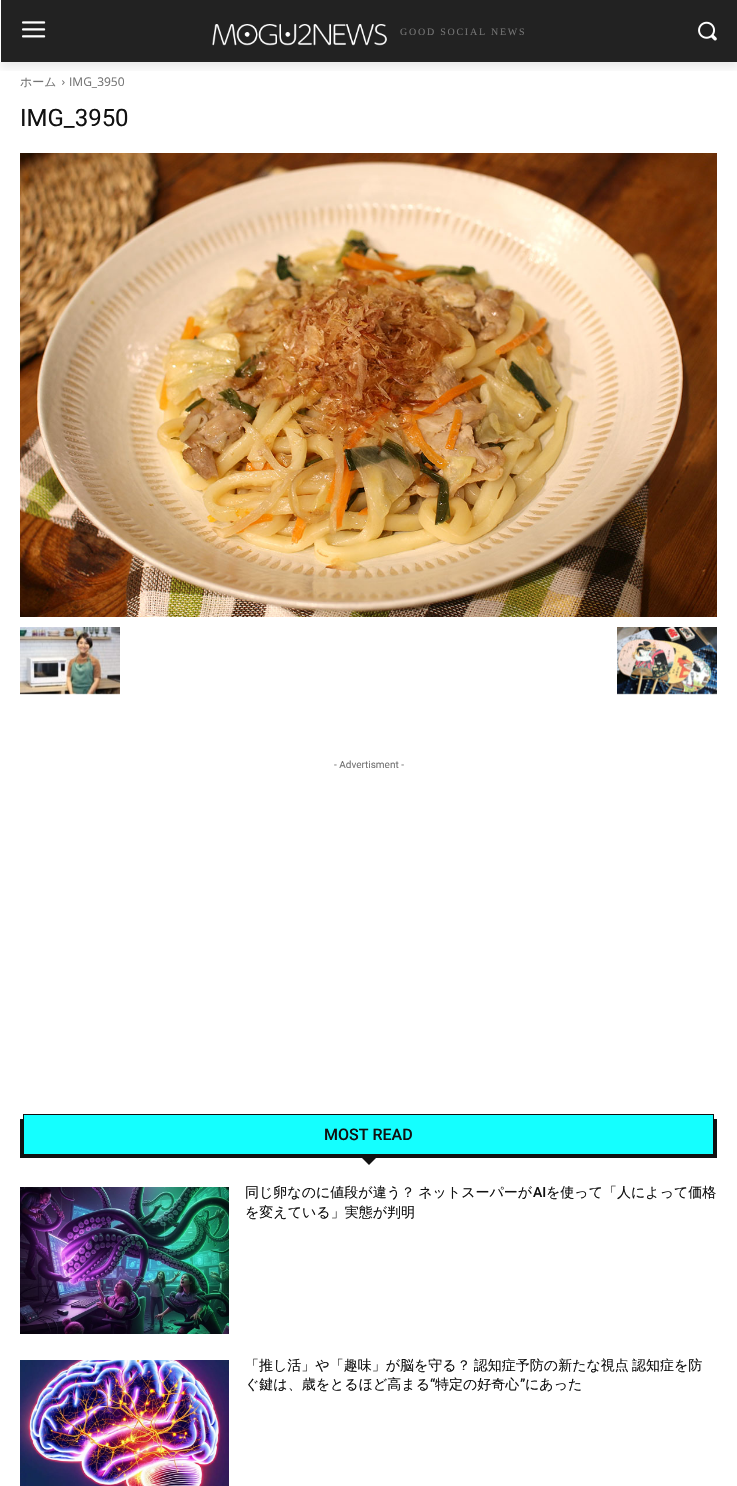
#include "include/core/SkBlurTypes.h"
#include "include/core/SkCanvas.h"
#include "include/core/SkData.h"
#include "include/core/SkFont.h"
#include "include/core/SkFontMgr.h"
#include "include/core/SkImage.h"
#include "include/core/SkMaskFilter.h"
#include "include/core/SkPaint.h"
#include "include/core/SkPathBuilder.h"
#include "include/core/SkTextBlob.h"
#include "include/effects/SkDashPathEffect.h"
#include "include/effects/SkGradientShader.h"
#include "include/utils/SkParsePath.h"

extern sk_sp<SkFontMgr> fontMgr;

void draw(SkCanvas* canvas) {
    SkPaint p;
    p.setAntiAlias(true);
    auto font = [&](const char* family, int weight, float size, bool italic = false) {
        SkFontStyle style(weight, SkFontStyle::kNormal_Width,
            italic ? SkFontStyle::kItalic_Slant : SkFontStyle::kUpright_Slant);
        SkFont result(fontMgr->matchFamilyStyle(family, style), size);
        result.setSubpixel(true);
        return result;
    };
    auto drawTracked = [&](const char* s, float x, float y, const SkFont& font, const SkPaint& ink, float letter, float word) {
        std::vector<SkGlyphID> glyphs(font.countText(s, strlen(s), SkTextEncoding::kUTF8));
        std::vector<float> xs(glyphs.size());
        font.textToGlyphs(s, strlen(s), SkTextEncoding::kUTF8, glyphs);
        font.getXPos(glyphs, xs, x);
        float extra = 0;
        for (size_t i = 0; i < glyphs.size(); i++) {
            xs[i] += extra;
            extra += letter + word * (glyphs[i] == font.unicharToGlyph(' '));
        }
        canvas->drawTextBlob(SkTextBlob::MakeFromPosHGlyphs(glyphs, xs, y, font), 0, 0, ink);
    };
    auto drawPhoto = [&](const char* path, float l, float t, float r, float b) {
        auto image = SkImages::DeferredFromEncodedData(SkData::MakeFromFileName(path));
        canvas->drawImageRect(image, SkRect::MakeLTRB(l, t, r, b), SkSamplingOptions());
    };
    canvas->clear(0xFFFFFFFF);
    p.setColor(0xFF222222);
    canvas->drawRect(SkRect::MakeLTRB(1, 0, 737, 62), p);
    drawPhoto("media/1.png", 22, 21, 46, 38);
    drawPhoto("media/2.png", 212, 24, 387, 46);
    drawPhoto("media/3.png", 698, 21, 717, 41);
    drawPhoto("media/4.png", 62, 80, 65, 85);
    canvas->save();
    canvas->clipRect(SkRect::MakeLTRB(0, 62, 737, 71));
    p.setColor(0x14000000);
    p.setMaskFilter(SkMaskFilter::MakeBlur(kNormal_SkBlurStyle, 4));
    canvas->drawRect(SkRect::MakeLTRB(1, 6, 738, 68), p);
    p.setMaskFilter(nullptr);
    canvas->restore();
    auto font1 = font("Liberation Serif", 400, 10);
    p.setColor(0xFF747474);
    drawTracked("GOOD SOCIAL NEWS", 400, 35, font1, p, 1.75f, 0);
    auto font2 = font("WenQuanYi Zen Hei", 500, 12);
    canvas->drawString("ホーム", 20, 86, font2, p);
    auto font3 = font("Open Sans", 400, 12);
    canvas->drawString("IMG_3950", 69, 86, font3, p);
    auto font4 = font("Roboto", 400, 24);
    p.setColor(0xFF111111);
    canvas->drawString("IMG_3950", 20, 126, font4, p);
    drawPhoto("media/5.png", 20, 153, 717, 617);
    drawPhoto("media/6.png", 20, 627, 120, 695);
    drawPhoto("media/7.png", 617, 627, 717, 695);
    auto font5 = font("Roboto", 400, 10);
    p.setColor(0xFF747474);
    canvas->drawString("- Advertisment -", 334, 768, font5, p);
    p.setColor(0xFF111111);
    canvas->drawRect(SkRect::MakeLTRB(20, 1119, 717, 1158), p);
    p.setColor(0xFF14FFFF);
    canvas->drawRect(SkRect::MakeLTRB(23.5f, 1114.5f, 713.5f, 1154.5f), p);
    p.setStyle(SkPaint::kStroke_Style);
    p.setStrokeWidth(1);
    p.setColor(0xFF111111);
    canvas->drawRect(SkRect::MakeLTRB(23.5f, 1114.5f, 713.5f, 1154.5f), p);
    auto font6 = font("Roboto", 500, 16);
    p.setStyle(SkPaint::kFill_Style);
    canvas->drawString("MOST READ", 324, 1140, font6, p);
    canvas->drawPath(SkPathBuilder().moveTo(361, 1157).lineTo(377, 1157).lineTo(369, 1165).close().detach(), p);
    drawPhoto("media/8.png", 20, 1187, 229, 1334);
    auto font7 = font("WenQuanYi Zen Hei", 500, 14);
    drawTracked("同じ卵なのに値段が違う？ ネットスーパーが", 245, 1197, font7, p, 0, -1);
    auto font8 = font("Roboto", 500, 14);
    canvas->drawString("AI", 533, 1197, font8, p);
    canvas->drawString("を使って「人によって価格", 546, 1197, font7, p);
    canvas->drawString("を変えている」実態が判明", 245, 1217, font7, p);
    drawPhoto("media/9.png", 20, 1360, 229, 1486);
    drawTracked("「推し活」や「趣味」が脳を守る？ 認知症予防の新たな視点 認知症を防", 245, 1370, font7, p, 0, -1);
    canvas->drawString("ぐ鍵は、歳をとるほど高まる", 245, 1389, font7, p);
    canvas->drawString("“", 430, 1389, font8, p);
    canvas->drawString("特定の好奇心", 435, 1389, font7, p);
    canvas->drawString("”", 520, 1389, font8, p);
    canvas->drawString("にあった", 525, 1389, font7, p);
}
